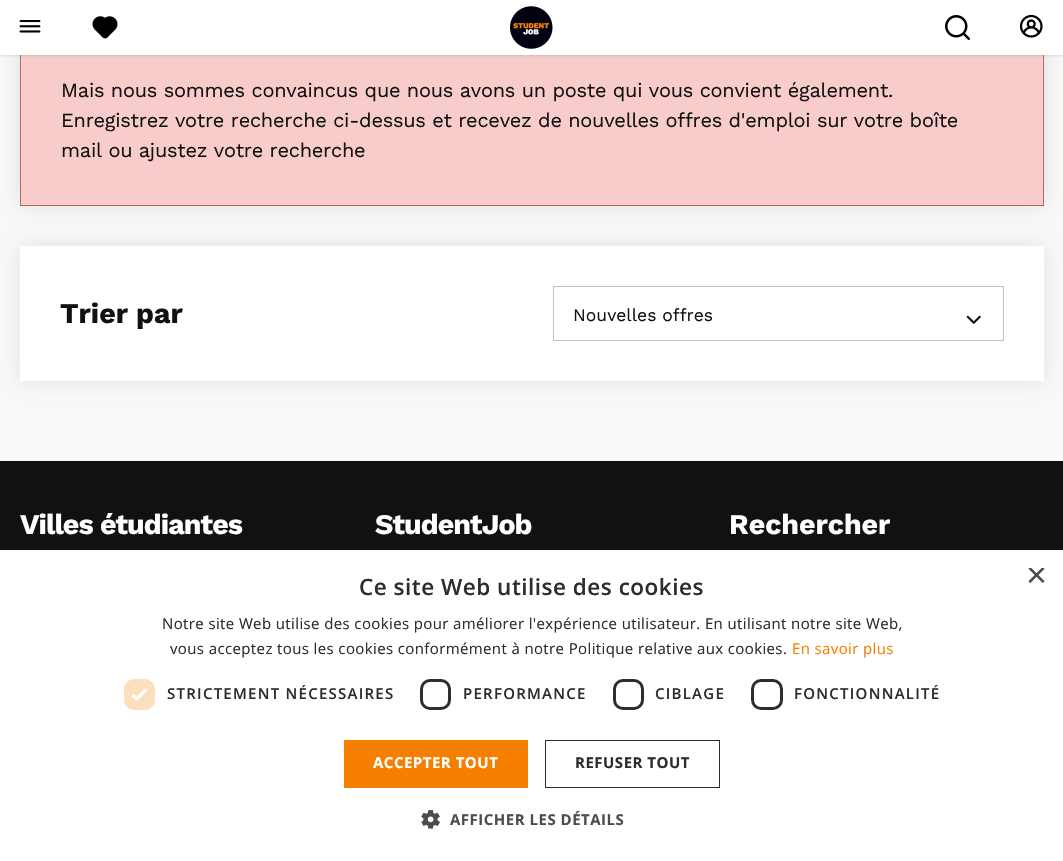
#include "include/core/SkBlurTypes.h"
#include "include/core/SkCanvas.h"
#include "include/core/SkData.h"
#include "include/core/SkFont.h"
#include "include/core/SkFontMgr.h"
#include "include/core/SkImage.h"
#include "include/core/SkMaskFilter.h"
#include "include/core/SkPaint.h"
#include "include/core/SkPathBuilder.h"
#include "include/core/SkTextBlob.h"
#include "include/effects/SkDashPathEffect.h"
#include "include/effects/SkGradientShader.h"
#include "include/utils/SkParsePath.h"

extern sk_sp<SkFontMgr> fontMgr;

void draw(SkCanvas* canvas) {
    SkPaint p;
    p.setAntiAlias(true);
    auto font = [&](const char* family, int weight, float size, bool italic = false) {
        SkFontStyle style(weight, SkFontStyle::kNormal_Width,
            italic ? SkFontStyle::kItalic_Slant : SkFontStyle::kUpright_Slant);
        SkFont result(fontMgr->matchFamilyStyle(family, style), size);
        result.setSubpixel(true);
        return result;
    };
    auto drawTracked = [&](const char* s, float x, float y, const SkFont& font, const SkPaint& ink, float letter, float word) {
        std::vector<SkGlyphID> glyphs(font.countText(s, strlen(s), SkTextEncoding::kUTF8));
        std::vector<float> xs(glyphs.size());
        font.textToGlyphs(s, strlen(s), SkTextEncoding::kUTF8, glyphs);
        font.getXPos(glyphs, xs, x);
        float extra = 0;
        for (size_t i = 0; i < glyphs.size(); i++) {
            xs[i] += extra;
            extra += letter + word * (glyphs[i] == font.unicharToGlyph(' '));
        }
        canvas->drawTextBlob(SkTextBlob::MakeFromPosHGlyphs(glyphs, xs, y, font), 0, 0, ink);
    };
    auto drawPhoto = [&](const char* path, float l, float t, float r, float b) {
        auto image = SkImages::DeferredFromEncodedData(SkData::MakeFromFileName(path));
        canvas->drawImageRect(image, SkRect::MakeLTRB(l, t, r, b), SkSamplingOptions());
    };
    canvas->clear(0xFFF9F9F9);
    p.setColor(0x1A000000);
    p.setMaskFilter(SkMaskFilter::MakeBlur(kNormal_SkBlurStyle, 9.5f));
    canvas->drawRect(SkRect::MakeLTRB(20, -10, 1044, 206), p);
    p.setMaskFilter(nullptr);
    p.setColor(0xFFF9CCCC);
    canvas->drawRect(SkRect::MakeLTRB(21, 55, 1043, 205), p);
    p.setStyle(SkPaint::kStroke_Style);
    p.setStrokeWidth(1);
    p.setColor(0xFFB16A6A);
    canvas->drawRect(SkRect::MakeLTRB(20.5f, -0.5f, 1043.5f, 205.5f), p);
    p.setStyle(SkPaint::kFill_Style);
    p.setColor(0x1A000000);
    p.setMaskFilter(SkMaskFilter::MakeBlur(kNormal_SkBlurStyle, 1));
    canvas->drawRect(SkRect::MakeLTRB(0, 1, 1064, 56), p);
    p.setMaskFilter(nullptr);
    p.setColor(0xFFFFFFFF);
    canvas->drawRect(SkRect::MakeLTRB(0, 0, 1063, 55), p);
    drawPhoto("media/1.png", 19, 20, 41, 33);
    drawPhoto("media/2.png", 92, 16, 118, 39);
    drawPhoto("media/3.png", 510, 6, 553, 49);
    drawPhoto("media/4.png", 945, 15, 970, 40);
    drawPhoto("media/5.png", 1019, 14, 1043, 38);
    auto font1 = font("Work Sans", 400, 20);
    p.setColor(0xFF111111);
    {
        const struct { const char* s; float x, y; } items[] = {
            {"Mais nous sommes convaincus que nous avons un poste qui vous convient également.", 61, 97},
            {"Enregistrez votre recherche ci-dessus et recevez de nouvelles offres d'emploi sur votre boîte", 61, 127},
            {"mail ou ajustez votre recherche", 61, 157},
        };
        for (auto [s, x, y] : items) {
            drawTracked(s, x, y, font1, p, -0.25f, 0);
        }
    }
    p.setColor(0x1A000000);
    p.setMaskFilter(SkMaskFilter::MakeBlur(kNormal_SkBlurStyle, 9.5f));
    canvas->drawRect(SkRect::MakeLTRB(20, 246, 1044, 381), p);
    p.setMaskFilter(nullptr);
    p.setColor(0xFFFFFFFF);
    canvas->drawRect(SkRect::MakeLTRB(20, 246, 1044, 381), p);
    auto font2 = font("Work Sans", 700, 28.5f);
    p.setColor(0xFF111111);
    canvas->drawString("Trier par", 60, 323, font2, p);
    p.setStyle(SkPaint::kStroke_Style);
    p.setColor(0xFFC3C3C3);
    canvas->drawRect(SkRect::MakeLTRB(553.5f, 286.5f, 1003.5f, 340.5f), p);
    auto font3 = font("Work Sans", 400, 17.5f);
    p.setStyle(SkPaint::kFill_Style);
    p.setColor(0xFF111111);
    canvas->drawString("Nouvelles offres", 573, 321, font3, p);
    drawPhoto("media/6.png", 966, 315, 981, 324);
    canvas->drawRect(SkRect::MakeLTRB(0, 461, 1063, 550), p);
    p.setColor(0xFFFFFFFF);
    drawTracked("Villes étudiantes", 20, 534, font2, p, -0.9f, 0);
    drawTracked("StudentJob", 375, 534, font2, p, -0.9f, 0);
    canvas->drawString("Rechercher", 729, 534, font2, p);
    canvas->drawRect(SkRect::MakeLTRB(0, 550, 1063, 861), p);
    canvas->save();
    canvas->clipRect(SkRect::MakeLTRB(1026, 568, 1045, 586));
    auto font4 = font("Liberation Sans", 400, 36);
    p.setColor(0xFF4D4D4D);
    canvas->drawString("×", 1026, 587, font4, p);
    canvas->restore();
    auto font5 = font("Open Sans", 600, 22.5f);
    p.setColor(0xFF2D2D2D);
    drawTracked("Ce site Web utilise des cookies", 359, 595, font5, p, 0.5f, 0);
    auto font6 = font("Open Sans", 400, 15);
    drawTracked("Notre site Web utilise des cookies pour améliorer l'expérience utilisateur. En utilisant notre site Web,", 162, 629, font6, p, 0.38f, 0);
    drawTracked("vous acceptez tous les cookies conformément à notre Politique relative aux cookies.", 170, 654, font6, p, 0.38f, 0);
    p.setColor(0xFFF77F00);
    drawTracked("En savoir plus", 792, 654, font6, p, 0.38f, 0);
    p.setColor(0xFFFDDEBD);
    canvas->drawRoundRect(SkRect::MakeLTRB(124, 679, 155, 710), 10, 10, p);
    p.setStyle(SkPaint::kStroke_Style);
    p.setStrokeWidth(3.3f);
    p.setColor(0xFFFFFFFF);
    canvas->drawPath(SkPathBuilder().moveTo(132.5f, 695).lineTo(136.5f, 699).lineTo(146.5f, 689.5f).detach(), p);
    auto font7 = font("Open Sans", 600, 15);
    p.setStyle(SkPaint::kFill_Style);
    p.setColor(0xFF2D2D2D);
    drawTracked("STRICTEMENT NÉCESSAIRES", 167, 699, font7, p, 1.25f, 0);
    p.setStyle(SkPaint::kStroke_Style);
    p.setStrokeWidth(3);
    canvas->drawRoundRect(SkRect::MakeLTRB(421.5f, 680.5f, 449.5f, 708.5f), 8.5f, 8.5f, p);
    p.setStyle(SkPaint::kFill_Style);
    drawTracked("PERFORMANCE", 463, 699, font7, p, 1.25f, 0);
    p.setStyle(SkPaint::kStroke_Style);
    canvas->drawRoundRect(SkRect::MakeLTRB(614.5f, 680.5f, 642.5f, 708.5f), 8.5f, 8.5f, p);
    p.setStyle(SkPaint::kFill_Style);
    drawTracked("CIBLAGE", 655, 699, font7, p, 1.25f, 0);
    p.setStyle(SkPaint::kStroke_Style);
    canvas->drawRoundRect(SkRect::MakeLTRB(752.5f, 680.5f, 781.5f, 708.5f), 8.5f, 8.5f, p);
    p.setStyle(SkPaint::kFill_Style);
    drawTracked("FONCTIONNALITÉ", 794, 699, font7, p, 1.25f, 0);
    p.setColor(0xFFF77F00);
    canvas->drawRect(SkRect::MakeLTRB(344, 740, 528, 788), p);
    auto font8 = font("Open Sans", 700, 15);
    p.setColor(0xFFFFFFFF);
    drawTracked("ACCEPTER TOUT", 373, 768, font8, p, 0.5f, 0);
    p.setStyle(SkPaint::kStroke_Style);
    p.setStrokeWidth(1);
    p.setColor(0xFF2D2D2D);
    canvas->drawRect(SkRect::MakeLTRB(545.5f, 740.5f, 719.5f, 787.5f), p);
    p.setStyle(SkPaint::kFill_Style);
    drawTracked("REFUSER TOUT", 575, 768, font8, p, 0.5f, 0);
    drawPhoto("media/7.png", 421, 810, 440, 829);
    p.setColor(0xFF4D4D4D);
    drawTracked("AFFICHER LES DÉTAILS", 450, 825, font8, p, 0.5f, 0);
}
